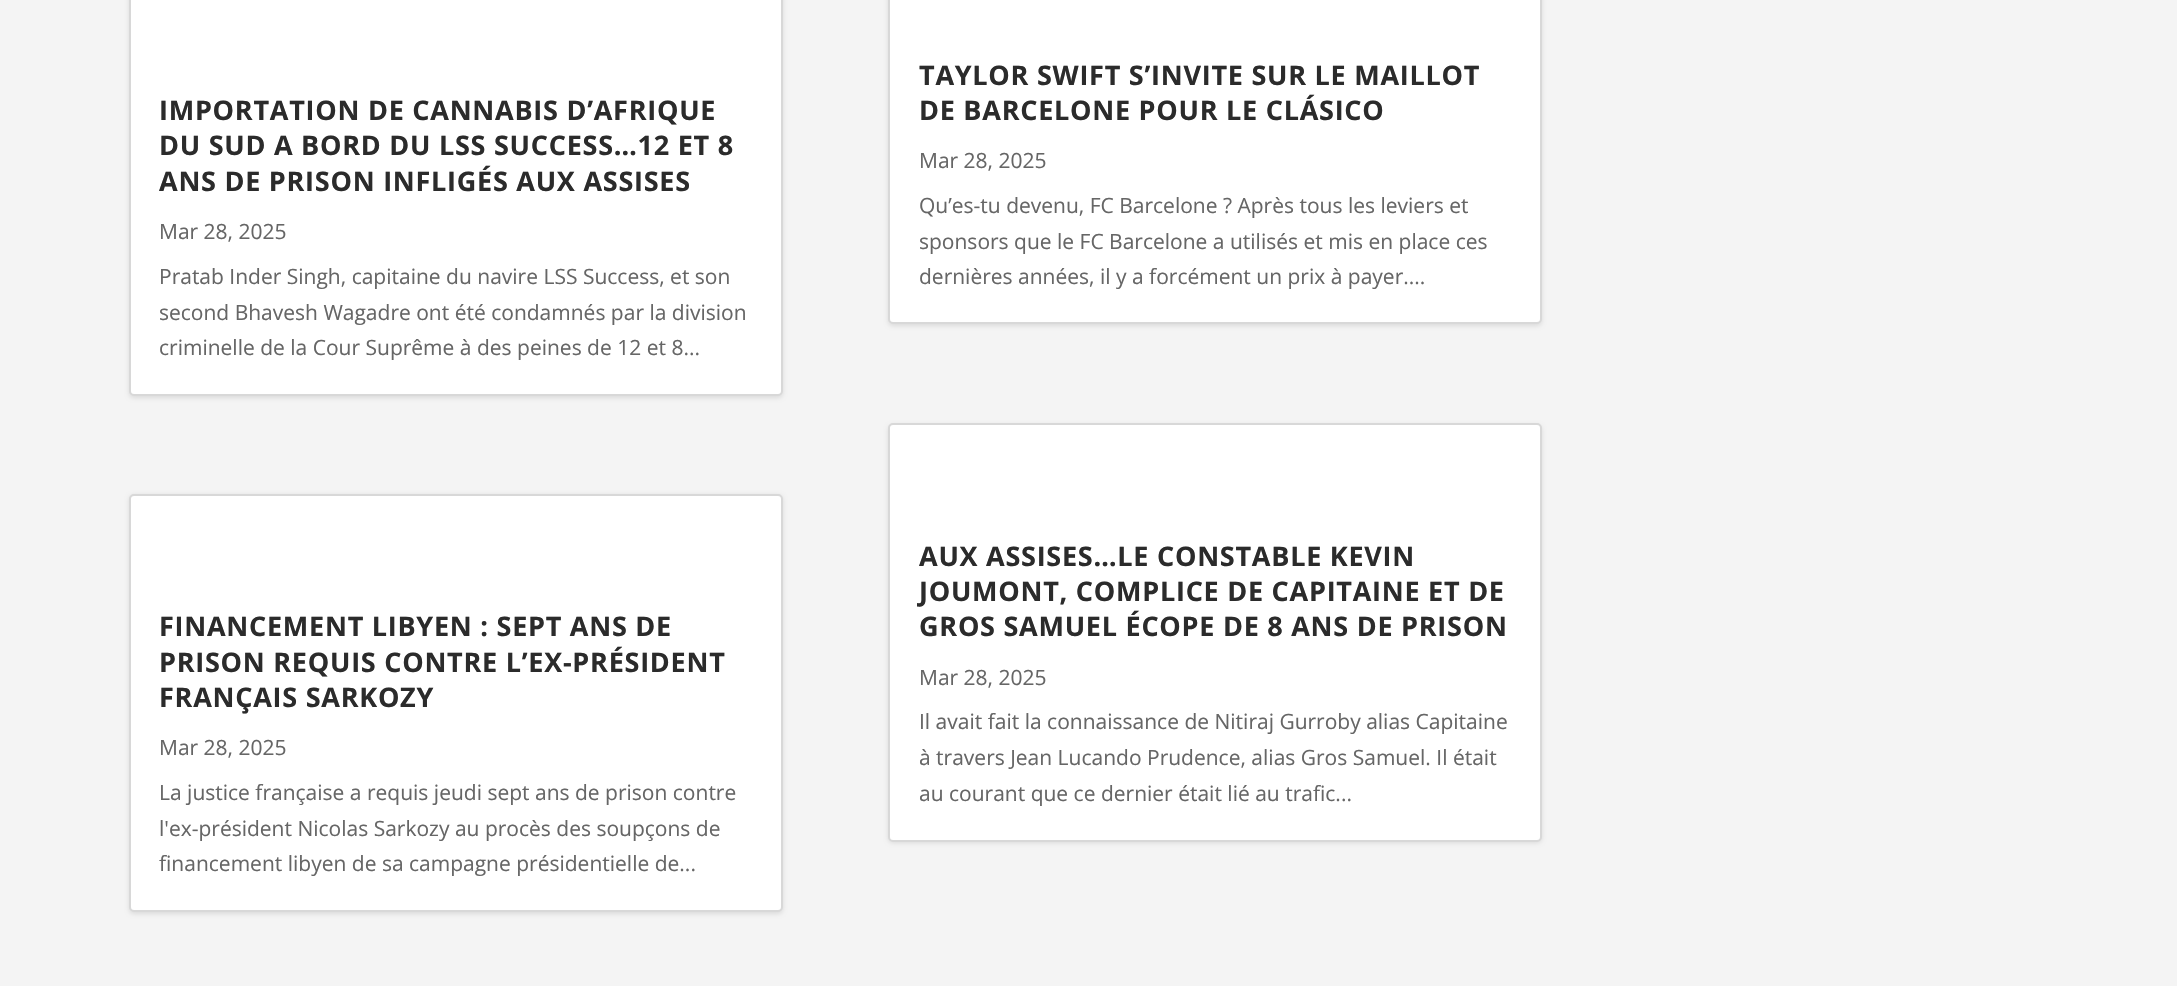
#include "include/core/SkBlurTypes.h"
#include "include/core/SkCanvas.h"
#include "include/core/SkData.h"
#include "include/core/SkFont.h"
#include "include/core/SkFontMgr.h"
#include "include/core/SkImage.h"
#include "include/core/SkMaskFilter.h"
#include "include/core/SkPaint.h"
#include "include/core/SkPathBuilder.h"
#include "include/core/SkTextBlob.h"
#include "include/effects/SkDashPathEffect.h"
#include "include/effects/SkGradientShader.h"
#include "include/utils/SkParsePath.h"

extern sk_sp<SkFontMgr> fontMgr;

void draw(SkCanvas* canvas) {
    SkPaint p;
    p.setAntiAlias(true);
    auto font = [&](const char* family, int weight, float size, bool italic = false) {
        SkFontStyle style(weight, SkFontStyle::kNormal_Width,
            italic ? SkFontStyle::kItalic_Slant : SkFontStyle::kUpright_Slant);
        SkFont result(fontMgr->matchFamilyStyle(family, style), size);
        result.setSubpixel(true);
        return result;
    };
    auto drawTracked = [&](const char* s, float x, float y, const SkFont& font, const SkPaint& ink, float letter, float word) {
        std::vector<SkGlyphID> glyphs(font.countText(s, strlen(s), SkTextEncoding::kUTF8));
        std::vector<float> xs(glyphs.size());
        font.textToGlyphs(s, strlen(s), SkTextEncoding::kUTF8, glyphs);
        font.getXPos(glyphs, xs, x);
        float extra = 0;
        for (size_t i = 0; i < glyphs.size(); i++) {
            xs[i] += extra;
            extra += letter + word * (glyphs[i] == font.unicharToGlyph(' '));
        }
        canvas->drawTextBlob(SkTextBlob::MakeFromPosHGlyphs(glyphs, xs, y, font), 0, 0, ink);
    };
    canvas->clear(0xFFF4F4F4);
    p.setColor(0x1A000000);
    p.setMaskFilter(SkMaskFilter::MakeBlur(kNormal_SkBlurStyle, 2));
    canvas->drawRoundRect(SkRect::MakeLTRB(129, -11, 783, 398), 5, 5, p);
    p.setMaskFilter(nullptr);
    p.setColor(0xFFFFFFFF);
    canvas->drawRoundRect(SkRect::MakeLTRB(130, -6, 782, 395), 4, 4, p);
    p.setStyle(SkPaint::kStroke_Style);
    p.setStrokeWidth(2);
    p.setColor(0xFFD8D8D8);
    canvas->drawRoundRect(SkRect::MakeLTRB(130, -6, 782, 395), 4, 4, p);
    auto font1 = font("Open Sans", 700, 27);
    p.setStyle(SkPaint::kFill_Style);
    p.setColor(0xFF2B2B2B);
    {
        const struct { const char* s; float x, y; } items[] = {
            {"IMPORTATION DE CANNABIS D’AFRIQUE", 159, 120},
            {"DU SUD A BORD DU LSS SUCCESS…12 ET 8", 159, 155},
            {"ANS DE PRISON INFLIGÉS AUX ASSISES", 159, 191},
        };
        for (auto [s, x, y] : items) {
            drawTracked(s, x, y, font1, p, 0.75f, 0);
        }
    }
    auto font2 = font("Open Sans", 400, 21);
    p.setColor(0xFF666666);
    {
        const struct { const char* s; float x, y; } items[] = {
            {"Mar 28, 2025", 159, 239},
            {"Pratab Inder Singh, capitaine du navire LSS Success, et son", 159, 284},
            {"second Bhavesh Wagadre ont été condamnés par la division", 159, 320},
            {"criminelle de la Cour Suprême à des peines de 12 et 8...", 159, 355},
        };
        for (auto [s, x, y] : items) {
            canvas->drawString(s, x, y, font2, p);
        }
    }
    p.setColor(0x1A000000);
    p.setMaskFilter(SkMaskFilter::MakeBlur(kNormal_SkBlurStyle, 2));
    canvas->drawRoundRect(SkRect::MakeLTRB(129, 495, 783, 914), 5, 5, p);
    p.setMaskFilter(nullptr);
    p.setColor(0xFFFFFFFF);
    canvas->drawRoundRect(SkRect::MakeLTRB(130, 495, 782, 911), 4, 4, p);
    p.setStyle(SkPaint::kStroke_Style);
    p.setColor(0xFFD8D8D8);
    canvas->drawRoundRect(SkRect::MakeLTRB(130, 495, 782, 911), 4, 4, p);
    p.setStyle(SkPaint::kFill_Style);
    p.setColor(0xFF2B2B2B);
    {
        const struct { const char* s; float x, y; } items[] = {
            {"FINANCEMENT LIBYEN : SEPT ANS DE", 159, 636},
            {"PRISON REQUIS CONTRE L’EX-PRÉSIDENT", 159, 672},
            {"FRANÇAIS SARKOZY", 159, 707},
        };
        for (auto [s, x, y] : items) {
            drawTracked(s, x, y, font1, p, 0.75f, 0);
        }
    }
    p.setColor(0xFF666666);
    {
        const struct { const char* s; float x, y; } items[] = {
            {"Mar 28, 2025", 159, 755},
            {"La justice française a requis jeudi sept ans de prison contre", 159, 800},
            {"l'ex-président Nicolas Sarkozy au procès des soupçons de", 159, 836},
            {"financement libyen de sa campagne présidentielle de...", 159, 871},
        };
        for (auto [s, x, y] : items) {
            canvas->drawString(s, x, y, font2, p);
        }
    }
    p.setColor(0x1A000000);
    p.setMaskFilter(SkMaskFilter::MakeBlur(kNormal_SkBlurStyle, 2));
    canvas->drawRoundRect(SkRect::MakeLTRB(888, -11, 1542, 326), 5, 5, p);
    p.setMaskFilter(nullptr);
    p.setColor(0xFFFFFFFF);
    canvas->drawRoundRect(SkRect::MakeLTRB(889, -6, 1541, 323), 4, 4, p);
    p.setStyle(SkPaint::kStroke_Style);
    p.setColor(0xFFD8D8D8);
    canvas->drawRoundRect(SkRect::MakeLTRB(889, -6, 1541, 323), 4, 4, p);
    p.setStyle(SkPaint::kFill_Style);
    p.setColor(0xFF2B2B2B);
    drawTracked("TAYLOR SWIFT S’INVITE SUR LE MAILLOT", 919, 85, font1, p, 0.75f, 0);
    drawTracked("DE BARCELONE POUR LE CLÁSICO", 919, 120, font1, p, 0.75f, 0);
    p.setColor(0xFF666666);
    {
        const struct { const char* s; float x, y; } items[] = {
            {"Mar 28, 2025", 919, 168},
            {"Qu’es-tu devenu, FC Barcelone ? Après tous les leviers et", 919, 213},
            {"sponsors que le FC Barcelone a utilisés et mis en place ces", 919, 249},
            {"dernières années, il y a forcément un prix à payer....", 919, 284},
        };
        for (auto [s, x, y] : items) {
            canvas->drawString(s, x, y, font2, p);
        }
    }
    p.setColor(0x1A000000);
    p.setMaskFilter(SkMaskFilter::MakeBlur(kNormal_SkBlurStyle, 2));
    canvas->drawRoundRect(SkRect::MakeLTRB(888, 425, 1542, 843), 5, 5, p);
    p.setMaskFilter(nullptr);
    p.setColor(0xFFFFFFFF);
    canvas->drawRoundRect(SkRect::MakeLTRB(889, 424, 1541, 841), 4, 4, p);
    p.setStyle(SkPaint::kStroke_Style);
    p.setColor(0xFFD8D8D8);
    canvas->drawRoundRect(SkRect::MakeLTRB(889, 424, 1541, 841), 4, 4, p);
    p.setStyle(SkPaint::kFill_Style);
    p.setColor(0xFF2B2B2B);
    {
        const struct { const char* s; float x, y; } items[] = {
            {"AUX ASSISES…LE CONSTABLE KEVIN", 919, 566},
            {"JOUMONT, COMPLICE DE CAPITAINE ET DE", 919, 601},
            {"GROS SAMUEL ÉCOPE DE 8 ANS DE PRISON", 919, 636},
        };
        for (auto [s, x, y] : items) {
            drawTracked(s, x, y, font1, p, 0.75f, 0);
        }
    }
    p.setColor(0xFF666666);
    {
        const struct { const char* s; float x, y; } items[] = {
            {"Mar 28, 2025", 919, 685},
            {"Il avait fait la connaissance de Nitiraj Gurroby alias Capitaine", 919, 729},
            {"à travers Jean Lucando Prudence, alias Gros Samuel. Il était", 919, 765},
            {"au courant que ce dernier était lié au trafic...", 919, 801},
        };
        for (auto [s, x, y] : items) {
            canvas->drawString(s, x, y, font2, p);
        }
    }
}
